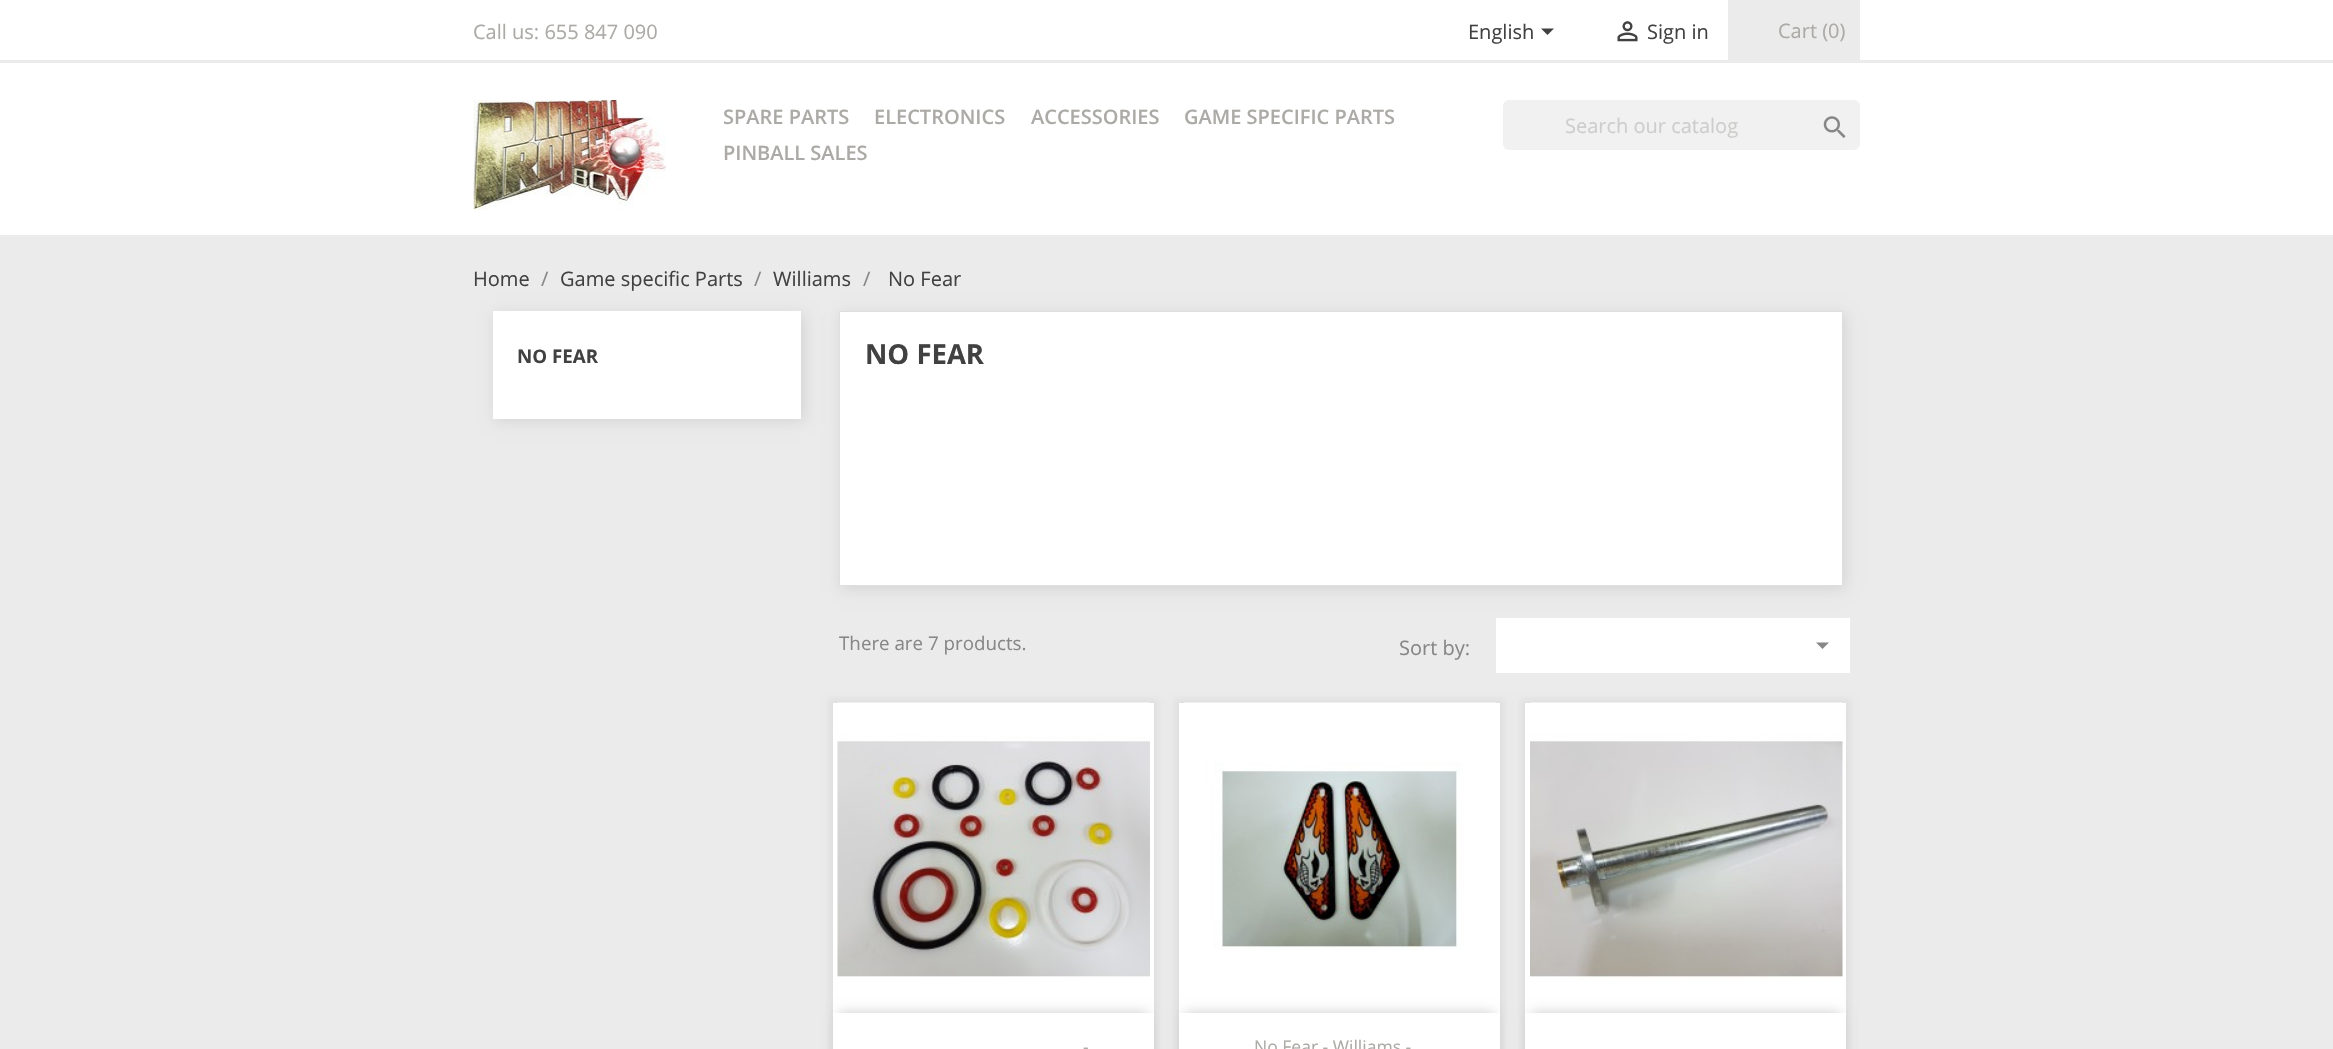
#include "include/core/SkBlurTypes.h"
#include "include/core/SkCanvas.h"
#include "include/core/SkData.h"
#include "include/core/SkFont.h"
#include "include/core/SkFontMgr.h"
#include "include/core/SkImage.h"
#include "include/core/SkMaskFilter.h"
#include "include/core/SkPaint.h"
#include "include/core/SkPathBuilder.h"
#include "include/core/SkTextBlob.h"
#include "include/effects/SkDashPathEffect.h"
#include "include/effects/SkGradientShader.h"
#include "include/utils/SkParsePath.h"

extern sk_sp<SkFontMgr> fontMgr;

void draw(SkCanvas* canvas) {
    SkPaint p;
    p.setAntiAlias(true);
    auto font = [&](const char* family, int weight, float size, bool italic = false) {
        SkFontStyle style(weight, SkFontStyle::kNormal_Width,
            italic ? SkFontStyle::kItalic_Slant : SkFontStyle::kUpright_Slant);
        SkFont result(fontMgr->matchFamilyStyle(family, style), size);
        result.setSubpixel(true);
        return result;
    };
    auto drawPhoto = [&](const char* path, float l, float t, float r, float b) {
        auto image = SkImages::DeferredFromEncodedData(SkData::MakeFromFileName(path));
        canvas->drawImageRect(image, SkRect::MakeLTRB(l, t, r, b), SkSamplingOptions());
    };
    canvas->clear(0xFFFFFFFF);
    p.setColor(0xFFEBEBEB);
    canvas->drawRect(SkRect::MakeLTRB(0, 60, 2333, 63), p);
    auto font1 = font("Open Sans", 400, 20);
    p.setColor(0xFFACAAA6);
    canvas->drawString("Call us: 655 847 090", 473, 39, font1, p);
    p.setColor(0xFF414141);
    canvas->drawString("English", 1468, 39, font1, p);
    canvas->drawPath(SkPathBuilder().moveTo(1541, 28.5f).lineTo(1554, 28.5f).lineTo(1547.5f, 35).close().detach(), p);
    drawPhoto("media/1.png", 1617, 21, 1638, 42);
    canvas->drawString("Sign in", 1647, 39, font1, p);
    p.setColor(0xFFEBEBEB);
    canvas->drawRect(SkRect::MakeLTRB(1728, 0, 1860, 60), p);
    p.setColor(0xFFACAAA6);
    canvas->drawString("Cart (0)", 1778, 38, font1, p);
    drawPhoto("media/2.png", 473, 100, 666, 210);
    auto font2 = font("Open Sans", 600, 20);
    {
        const struct { const char* s; float x, y; } items[] = {
            {"SPARE PARTS", 723, 124},
            {"ELECTRONICS", 874, 124},
            {"ACCESSORIES", 1031, 124},
            {"GAME SPECIFIC PARTS", 1184, 124},
            {"PINBALL SALES", 723, 160},
        };
        for (auto [s, x, y] : items) {
            canvas->drawString(s, x, y, font2, p);
        }
    }
    p.setColor(0xFFF1F1F1);
    canvas->drawRoundRect(SkRect::MakeLTRB(1503, 100, 1860, 150), 6, 6, p);
    p.setColor(0xFFCECDCC);
    canvas->drawString("Search our catalog", 1565, 133, font1, p);
    drawPhoto("media/3.png", 1823, 116, 1846, 138);
    p.setColor(0xFFEBEBEB);
    canvas->drawRect(SkRect::MakeLTRB(0, 235, 2333, 1049), p);
    p.setColor(0xFF414141);
    canvas->drawString("Home", 473, 286, font1, p);
    p.setColor(0xFF878787);
    canvas->drawString("/", 541, 286, font1, p);
    p.setColor(0xFF414141);
    canvas->drawString("Game specific Parts", 560, 286, font1, p);
    p.setColor(0xFF878787);
    canvas->drawString("/", 754, 286, font1, p);
    p.setColor(0xFF414141);
    canvas->drawString("Williams", 773, 286, font1, p);
    p.setColor(0xFF878787);
    canvas->drawString("/", 863, 286, font1, p);
    p.setColor(0xFF414141);
    canvas->drawString("No Fear", 888, 286, font1, p);
    p.setColor(0x1A000000);
    p.setMaskFilter(SkMaskFilter::MakeBlur(kNormal_SkBlurStyle, 7));
    canvas->drawRect(SkRect::MakeLTRB(495, 314, 804, 421), p);
    p.setMaskFilter(nullptr);
    p.setColor(0xFFFFFFFF);
    canvas->drawRect(SkRect::MakeLTRB(493, 311, 801, 419), p);
    auto font3 = font("Open Sans", 700, 18.75f);
    p.setColor(0xFF414141);
    canvas->drawString("NO FEAR", 517, 363, font3, p);
    p.setColor(0x1A000000);
    p.setMaskFilter(SkMaskFilter::MakeBlur(kNormal_SkBlurStyle, 7));
    canvas->drawRect(SkRect::MakeLTRB(841, 314, 1845, 589), p);
    p.setMaskFilter(nullptr);
    p.setColor(0xFFFFFFFF);
    canvas->drawRect(SkRect::MakeLTRB(839.5f, 311.5f, 1842.5f, 585.5f), p);
    p.setStyle(SkPaint::kStroke_Style);
    p.setStrokeWidth(1);
    p.setColor(0xFFDFDFDF);
    canvas->drawRect(SkRect::MakeLTRB(839.5f, 311.5f, 1842.5f, 585.5f), p);
    auto font4 = font("Open Sans", 700, 27.5f);
    p.setStyle(SkPaint::kFill_Style);
    p.setColor(0xFF414141);
    canvas->drawString("NO FEAR", 865, 364, font4, p);
    auto font5 = font("Open Sans", 400, 18.75f);
    p.setColor(0xFF878787);
    canvas->drawString("There are 7 products.", 839, 650, font5, p);
    canvas->drawString("Sort by:", 1399, 655, font1, p);
    p.setColor(0xFFFFFFFF);
    canvas->drawRect(SkRect::MakeLTRB(1496, 618, 1850, 673), p);
    p.setColor(0xFF878787);
    canvas->drawPath(SkPathBuilder().moveTo(1816, 642.5f).lineTo(1829, 642.5f).lineTo(1822.5f, 649).close().detach(), p);
    p.setColor(0x0D000000);
    p.setMaskFilter(SkMaskFilter::MakeBlur(kNormal_SkBlurStyle, 3));
    canvas->drawRect(SkRect::MakeLTRB(829, 699, 1158, 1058), p);
    p.setMaskFilter(nullptr);
    p.setColor(0xFFFFFFFF);
    canvas->drawRect(SkRect::MakeLTRB(833, 703, 1154, 1013), p);
    drawPhoto("media/4.png", 837, 702, 1150, 977);
    p.setColor(0x33000000);
    p.setMaskFilter(SkMaskFilter::MakeBlur(kNormal_SkBlurStyle, 6));
    canvas->drawRect(SkRect::MakeLTRB(839, 1013, 1148, 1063), p);
    p.setMaskFilter(nullptr);
    p.setColor(0xFFFFFFFF);
    canvas->drawRect(SkRect::MakeLTRB(833, 1013, 1154, 1049), p);
    auto font6 = font("Open Sans", 400, 17.5f);
    p.setColor(0xFFACAAA6);
    canvas->drawString("-", 1083, 1053, font6, p);
    p.setColor(0x0D000000);
    p.setMaskFilter(SkMaskFilter::MakeBlur(kNormal_SkBlurStyle, 3));
    canvas->drawRect(SkRect::MakeLTRB(1175, 699, 1504, 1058), p);
    p.setMaskFilter(nullptr);
    p.setColor(0xFFFFFFFF);
    canvas->drawRect(SkRect::MakeLTRB(1179, 703, 1500, 1013), p);
    drawPhoto("media/5.png", 1184, 702, 1496, 950);
    p.setColor(0x33000000);
    p.setMaskFilter(SkMaskFilter::MakeBlur(kNormal_SkBlurStyle, 6));
    canvas->drawRect(SkRect::MakeLTRB(1185, 1013, 1494, 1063), p);
    p.setMaskFilter(nullptr);
    p.setColor(0xFFFFFFFF);
    canvas->drawRect(SkRect::MakeLTRB(1179, 1013, 1500, 1049), p);
    p.setColor(0xFFACAAA6);
    canvas->drawString("No Fear - Williams -", 1254, 1053, font6, p);
    p.setColor(0x0D000000);
    p.setMaskFilter(SkMaskFilter::MakeBlur(kNormal_SkBlurStyle, 3));
    canvas->drawRect(SkRect::MakeLTRB(1521, 699, 1850, 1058), p);
    p.setMaskFilter(nullptr);
    p.setColor(0xFFFFFFFF);
    canvas->drawRect(SkRect::MakeLTRB(1525, 703, 1846, 1013), p);
    drawPhoto("media/6.png", 1530, 702, 1843, 979);
    p.setColor(0x33000000);
    p.setMaskFilter(SkMaskFilter::MakeBlur(kNormal_SkBlurStyle, 6));
    canvas->drawRect(SkRect::MakeLTRB(1531, 1013, 1840, 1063), p);
    p.setMaskFilter(nullptr);
    p.setColor(0xFFFFFFFF);
    canvas->drawRect(SkRect::MakeLTRB(1525, 1013, 1846, 1049), p);
}
